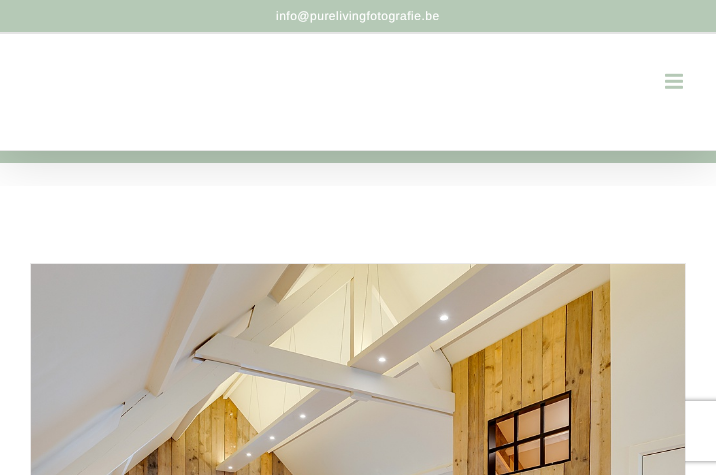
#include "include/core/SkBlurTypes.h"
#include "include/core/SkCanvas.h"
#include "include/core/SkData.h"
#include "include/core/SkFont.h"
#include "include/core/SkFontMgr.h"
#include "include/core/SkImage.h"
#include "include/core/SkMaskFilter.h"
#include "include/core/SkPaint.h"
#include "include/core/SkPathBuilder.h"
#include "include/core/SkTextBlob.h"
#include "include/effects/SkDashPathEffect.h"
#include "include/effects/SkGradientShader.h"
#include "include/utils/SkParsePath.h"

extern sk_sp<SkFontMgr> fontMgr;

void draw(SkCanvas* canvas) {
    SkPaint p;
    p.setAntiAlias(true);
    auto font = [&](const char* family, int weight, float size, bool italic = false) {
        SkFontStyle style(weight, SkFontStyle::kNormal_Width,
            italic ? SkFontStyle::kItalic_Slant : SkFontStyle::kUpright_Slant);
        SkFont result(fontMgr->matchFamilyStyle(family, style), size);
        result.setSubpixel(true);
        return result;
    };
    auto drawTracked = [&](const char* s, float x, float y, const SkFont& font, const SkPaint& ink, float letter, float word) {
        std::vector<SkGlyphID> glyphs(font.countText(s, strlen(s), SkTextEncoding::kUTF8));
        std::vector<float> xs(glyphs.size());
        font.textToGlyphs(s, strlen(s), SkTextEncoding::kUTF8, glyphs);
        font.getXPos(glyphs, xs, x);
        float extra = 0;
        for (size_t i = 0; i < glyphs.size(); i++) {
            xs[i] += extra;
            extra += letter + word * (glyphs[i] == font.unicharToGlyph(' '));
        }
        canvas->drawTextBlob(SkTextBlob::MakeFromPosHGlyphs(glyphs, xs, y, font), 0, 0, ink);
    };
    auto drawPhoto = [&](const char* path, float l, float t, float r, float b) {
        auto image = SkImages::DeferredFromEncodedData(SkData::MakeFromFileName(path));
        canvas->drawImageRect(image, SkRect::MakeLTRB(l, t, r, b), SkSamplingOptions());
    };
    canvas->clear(0xFFFFFFFF);
    p.setColor(0xFFB5C9B6);
    canvas->drawRect(SkRect::MakeLTRB(0, 151, 716, 163), p);
    canvas->save();
    canvas->clipRect(SkRect::MakeLTRB(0, 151, 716, 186));
    p.setColor(0x24000000);
    p.setMaskFilter(SkMaskFilter::MakeBlur(kNormal_SkBlurStyle, 25));
    canvas->drawRect(SkRect::MakeLTRB(2, 12, 714, 159), p);
    p.setMaskFilter(nullptr);
    canvas->restore();
    p.setColor(0xFFB5C9B6);
    canvas->drawRect(SkRect::MakeLTRB(0, 0, 716, 32), p);
    p.setColor(0xFFE5E5E5);
    canvas->drawRect(SkRect::MakeLTRB(0, 32, 716, 34), p);
    auto font1 = font("Liberation Sans", 400, 12);
    p.setColor(0xFFFFFFFF);
    drawTracked("info@purelivingfotografie.be", 276, 20, font1, p, 0.5f, 0);
    p.setColor(0xFFE5E5E5);
    canvas->drawRect(SkRect::MakeLTRB(0, 150, 716, 151), p);
    drawPhoto("media/1.png", 665, 73, 683, 89);
    {
        const struct { float l, t, r, b; SkColor color; } items[] = {
            {30, 263, 686, 264, 0xFFEBEAEA},
            {685, 263, 686, 475, 0xFFEBEAEA},
            {30, 263, 31, 475, 0xFFEBEAEA},
        };
        for (auto [l, t, r, b, color] : items) {
            p.setColor(color);
            canvas->drawRect(SkRect::MakeLTRB(l, t, r, b), p);
        }
    }
    canvas->save();
    canvas->clipPath(SkPathBuilder(SkPathFillType::kEvenOdd).moveTo(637, 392).lineTo(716, 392).lineTo(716, 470).lineTo(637, 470).close().moveTo(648, 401).lineTo(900, 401).cubicTo(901, 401, 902, 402, 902, 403).lineTo(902, 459).cubicTo(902, 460, 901, 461, 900, 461).lineTo(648, 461).cubicTo(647, 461, 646, 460, 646, 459).lineTo(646, 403).cubicTo(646, 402, 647, 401, 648, 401).close().detach(), true);
    p.setColor(0xFF808080);
    p.setMaskFilter(SkMaskFilter::MakeBlur(kNormal_SkBlurStyle, 2.5f));
    canvas->drawRoundRect(SkRect::MakeLTRB(646, 401, 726, 461), 2, 2, p);
    p.setMaskFilter(nullptr);
    canvas->restore();
    drawPhoto("media/2.png", 31, 264, 685, 475);
}
